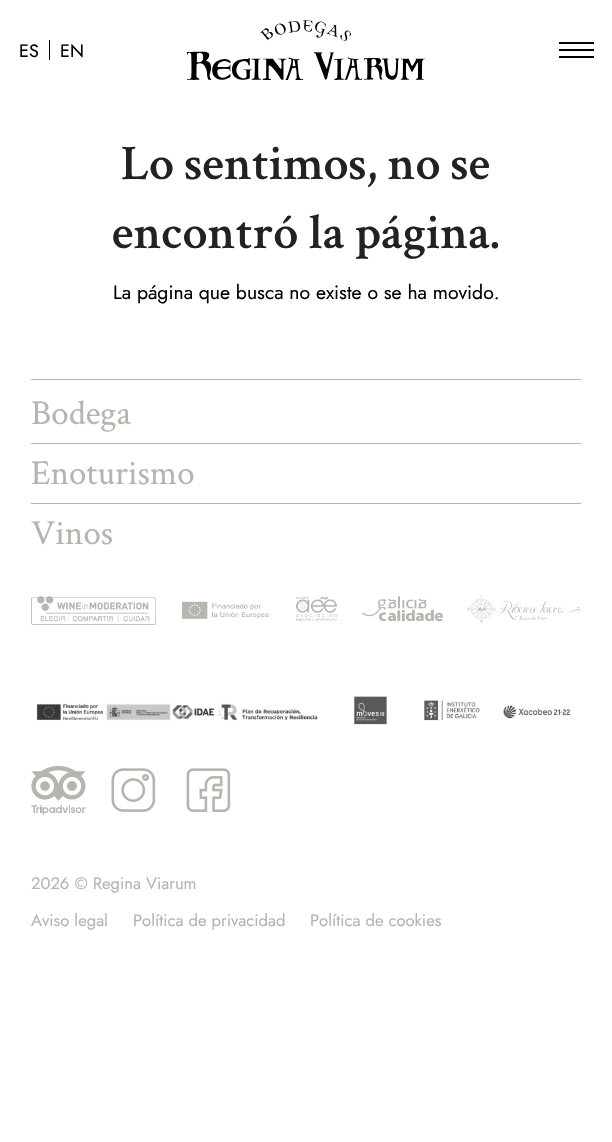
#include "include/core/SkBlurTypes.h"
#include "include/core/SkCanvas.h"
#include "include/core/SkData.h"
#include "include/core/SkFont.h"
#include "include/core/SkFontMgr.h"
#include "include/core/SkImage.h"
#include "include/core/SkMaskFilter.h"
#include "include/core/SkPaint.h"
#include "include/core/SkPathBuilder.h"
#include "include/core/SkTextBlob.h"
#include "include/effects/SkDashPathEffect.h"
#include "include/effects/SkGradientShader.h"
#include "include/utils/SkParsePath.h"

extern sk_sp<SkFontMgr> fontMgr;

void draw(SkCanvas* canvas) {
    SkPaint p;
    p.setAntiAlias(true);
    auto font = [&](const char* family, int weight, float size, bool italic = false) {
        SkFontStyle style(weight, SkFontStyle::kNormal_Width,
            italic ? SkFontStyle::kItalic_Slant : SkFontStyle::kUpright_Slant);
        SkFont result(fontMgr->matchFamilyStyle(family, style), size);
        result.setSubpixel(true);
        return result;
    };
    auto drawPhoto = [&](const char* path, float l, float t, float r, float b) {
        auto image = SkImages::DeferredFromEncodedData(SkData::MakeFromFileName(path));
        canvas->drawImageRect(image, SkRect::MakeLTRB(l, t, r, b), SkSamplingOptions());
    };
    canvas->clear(0xFFFFFFFF);
    p.setColor(0xFF000000);
    canvas->drawRect(SkRect::MakeLTRB(49, 40, 50, 60), p);
    auto font1 = font("Jost", 400, 18);
    canvas->drawString("ES", 19, 57, font1, p);
    canvas->drawString("EN", 60, 57, font1, p);
    drawPhoto("media/1.png", 187, 20, 425, 80);
    {
        const struct { float l, t, r, b; SkColor color; } items[] = {
            {559, 49, 594, 51, 0xFF000000},
            {559, 42, 594, 44, 0xFF000000},
            {559, 56, 594, 58, 0xFF000000},
        };
        for (auto [l, t, r, b, color] : items) {
            p.setColor(color);
            canvas->drawRect(SkRect::MakeLTRB(l, t, r, b), p);
        }
    }
    auto font2 = font("Crimson Text", 600, 49.75f);
    p.setColor(0xFF222222);
    canvas->drawString("Lo sentimos, no se", 121, 179, font2, p);
    canvas->drawString("encontró la página.", 112, 248, font2, p);
    auto font3 = font("Jost", 400, 19.4f);
    p.setColor(0xFF000000);
    canvas->drawString("La página que busca no existe o se ha movido.", 113, 299, font3, p);
    p.setColor(0xFFB4B5AE);
    canvas->drawRect(SkRect::MakeLTRB(31, 379, 581, 380), p);
    canvas->drawRect(SkRect::MakeLTRB(31, 443, 581, 444), p);
    auto font4 = font("Crimson Text", 400, 35);
    canvas->drawString("Bodega", 31, 424, font4, p);
    canvas->drawRect(SkRect::MakeLTRB(31, 503, 581, 504), p);
    canvas->drawString("Enoturismo", 31, 484, font4, p);
    canvas->drawString("Vinos", 31, 544, font4, p);
    drawPhoto("media/2.png", 31, 595, 581, 625);
    drawPhoto("media/3.png", 36, 696, 571, 725);
    drawPhoto("media/4.png", 31, 765, 86, 815);
    drawPhoto("media/5.png", 111, 768, 156, 812);
    drawPhoto("media/6.png", 186, 768, 231, 812);
    auto font5 = font("Jost", 400, 16.6f);
    {
        const struct { const char* s; float x, y; } items[] = {
            {"2026 © Regina Viarum", 31, 889},
            {"Aviso legal", 31, 926},
            {"Política de privacidad", 133, 926},
            {"Política de cookies", 310, 926},
        };
        for (auto [s, x, y] : items) {
            canvas->drawString(s, x, y, font5, p);
        }
    }
}
